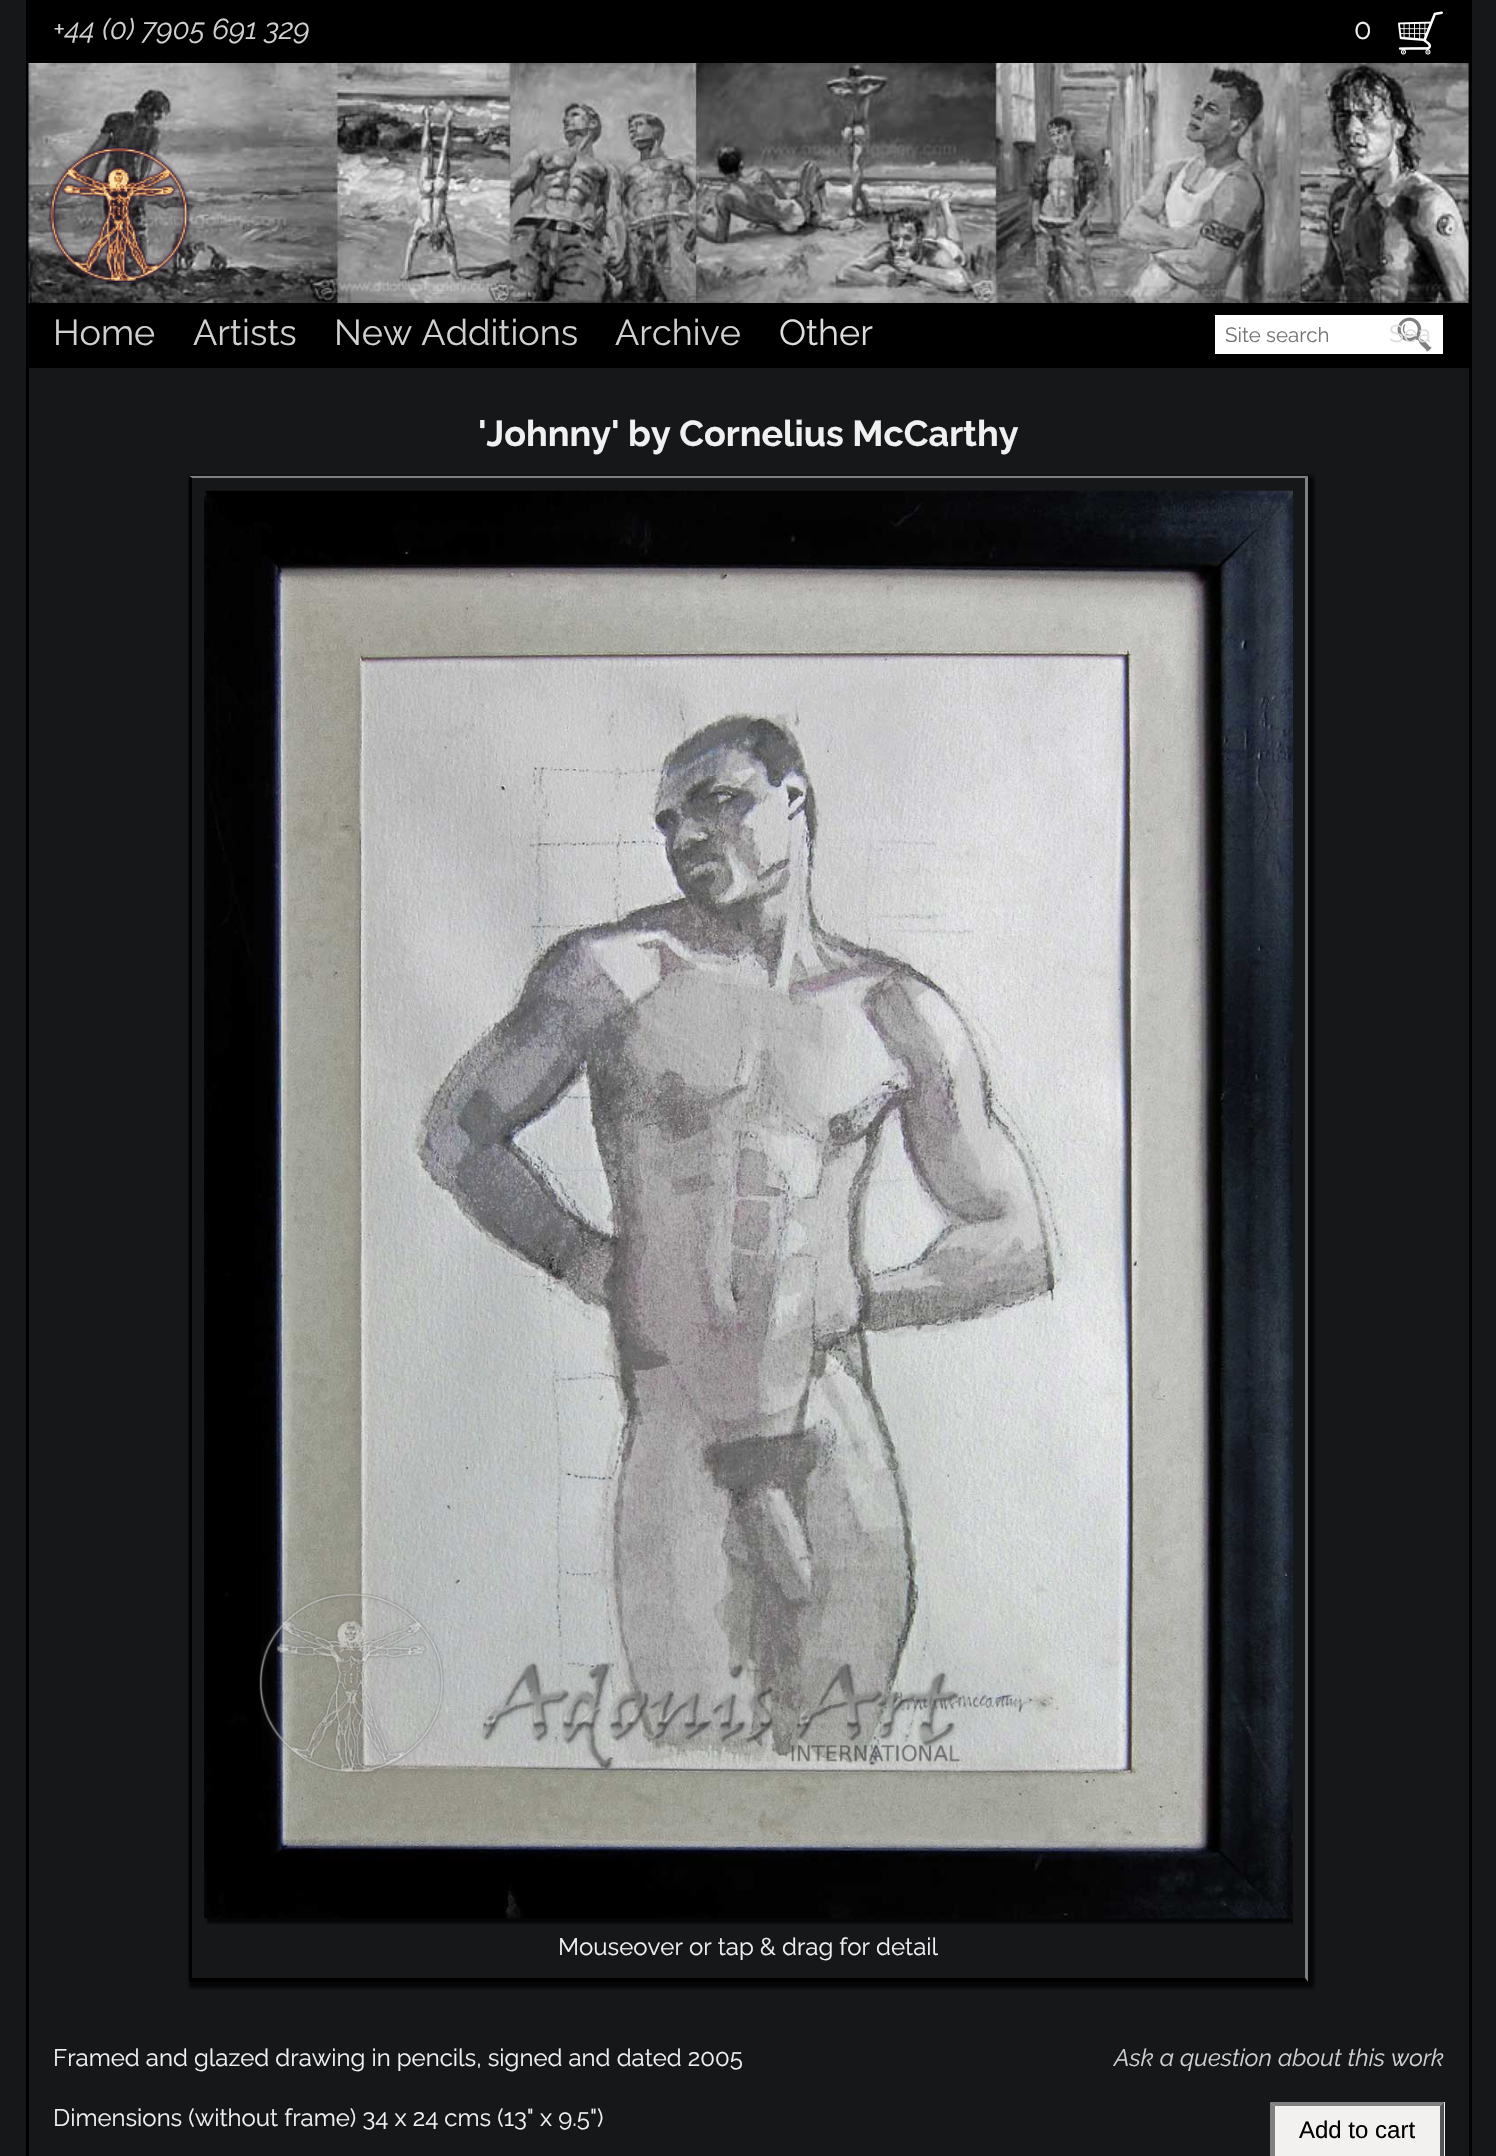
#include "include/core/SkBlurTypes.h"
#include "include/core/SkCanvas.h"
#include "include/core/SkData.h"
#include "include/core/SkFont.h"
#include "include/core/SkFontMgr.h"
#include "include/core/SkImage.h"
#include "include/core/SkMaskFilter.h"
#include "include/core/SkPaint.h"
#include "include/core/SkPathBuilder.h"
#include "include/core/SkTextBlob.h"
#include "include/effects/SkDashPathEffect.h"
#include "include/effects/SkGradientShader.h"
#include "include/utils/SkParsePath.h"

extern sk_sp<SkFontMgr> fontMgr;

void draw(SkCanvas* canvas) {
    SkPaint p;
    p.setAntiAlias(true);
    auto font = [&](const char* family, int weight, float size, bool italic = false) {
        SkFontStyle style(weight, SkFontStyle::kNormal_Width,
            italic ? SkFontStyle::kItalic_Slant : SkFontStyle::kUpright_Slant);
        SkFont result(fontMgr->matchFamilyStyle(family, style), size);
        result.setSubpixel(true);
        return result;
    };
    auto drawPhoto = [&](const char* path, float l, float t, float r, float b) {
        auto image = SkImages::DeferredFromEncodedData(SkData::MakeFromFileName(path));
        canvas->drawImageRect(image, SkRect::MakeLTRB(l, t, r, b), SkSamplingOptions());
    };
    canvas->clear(0xFF151719);
    p.setStyle(SkPaint::kStroke_Style);
    p.setStrokeWidth(3);
    p.setColor(0xFF000000);
    canvas->drawRect(SkRect::MakeLTRB(27.5f, 1.5f, 1470.5f, 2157.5f), p);
    p.setStyle(SkPaint::kFill_Style);
    canvas->drawRect(SkRect::MakeLTRB(29, 3, 1469, 63), p);
    auto font1 = font("Raleway", 400, 28.75f, true);
    p.setColor(0xFFD0D0D0);
    canvas->drawString("+44 (0) 7905 691 329", 53, 39, font1, p);
    auto font2 = font("Raleway", 400, 28.75f);
    p.setColor(0xFFF0F0F0);
    canvas->drawString("0", 1354, 39, font2, p);
    drawPhoto("media/1.png", 1398, 11, 1443, 55);
    drawPhoto("media/2.png", 28, 63, 1469, 303);
    drawPhoto("media/3.png", 48, 146, 190, 284);
    p.setColor(0xFF000000);
    canvas->drawRect(SkRect::MakeLTRB(29, 303, 1469, 368), p);
    auto font3 = font("Raleway", 400, 36);
    p.setColor(0xFFD0D0D0);
    {
        const struct { const char* s; float x, y; } items[] = {
            {"Home", 53, 345},
            {"Artists", 193, 345},
            {"New Additions", 334, 345},
            {"Archive", 615, 345},
        };
        for (auto [s, x, y] : items) {
            canvas->drawString(s, x, y, font3, p);
        }
    }
    p.setColor(0xFFDDDDDD);
    canvas->drawString("Other", 779, 345, font3, p);
    p.setColor(0xFFFFFFFF);
    canvas->drawRect(SkRect::MakeLTRB(1215, 315, 1443, 354), p);
    auto font4 = font("Raleway", 400, 20.5f);
    p.setColor(0xFF757575);
    canvas->drawString("Site search", 1225, 342, font4, p);
    drawPhoto("media/4.png", 1397, 317, 1432, 352);
    auto font5 = font("Raleway", 400, 24);
    p.setColor(0xFFDDDDDD);
    canvas->drawString("Sea", 1389, 342, font5, p);
    auto font6 = font("Raleway", 700, 36);
    p.setColor(0xFFF0F0F0);
    canvas->drawString("'Johnny' by Cornelius McCarthy", 478, 446, font6, p);
    canvas->save();
    canvas->clipPath(SkPathBuilder(SkPathFillType::kEvenOdd).moveTo(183, 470).lineTo(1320, 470).lineTo(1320, 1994).lineTo(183, 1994).close().moveTo(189, 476).lineTo(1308, 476).lineTo(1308, 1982).lineTo(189, 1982).close().detach(), true);
    p.setColor(0xBF000000);
    p.setMaskFilter(SkMaskFilter::MakeBlur(kNormal_SkBlurStyle, 1.5f));
    canvas->drawRect(SkRect::MakeLTRB(189, 476, 1314, 1988), p);
    p.setMaskFilter(nullptr);
    canvas->restore();
    p.setColor(0xFF808080);
    canvas->drawPath(SkPathBuilder().moveTo(189, 476).lineTo(1308, 476).lineTo(1305, 478).lineTo(192, 478).close().detach(), p);
    canvas->drawPath(SkPathBuilder().moveTo(1308, 476).lineTo(1308, 1982).lineTo(1305, 1978).lineTo(1305, 478).close().detach(), p);
    p.setColor(0xFF000000);
    canvas->drawPath(SkPathBuilder().moveTo(1308, 1982).lineTo(189, 1982).lineTo(192, 1978).lineTo(1305, 1978).close().detach(), p);
    canvas->drawPath(SkPathBuilder().moveTo(189, 1982).lineTo(189, 476).lineTo(192, 478).lineTo(192, 1978).close().detach(), p);
    canvas->save();
    canvas->clipRect(SkRect::MakeLTRB(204, 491, 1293, 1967));
    p.setColor(0xBF000000);
    p.setMaskFilter(SkMaskFilter::MakeBlur(kNormal_SkBlurStyle, 1));
    canvas->drawRect(SkRect::MakeLTRB(207, 489, 1302, 1923), p);
    p.setMaskFilter(nullptr);
    canvas->restore();
    drawPhoto("media/5.png", 204, 490, 1293, 1919);
    p.setColor(0xFFF0F0F0);
    {
        const struct { const char* s; float x, y; } items[] = {
            {"Mouseover or tap & drag for detail", 558, 1955},
            {"Framed and glazed drawing in pencils, signed and dated 2005", 53, 2066},
            {"Dimensions (without frame) 34 x 24 cms (13\" x 9.5\")", 53, 2126},
        };
        for (auto [s, x, y] : items) {
            canvas->drawString(s, x, y, font5, p);
        }
    }
    auto font7 = font("Raleway", 400, 24, true);
    p.setColor(0xFFD0D0D0);
    canvas->drawString("Ask a question about this work", 1114, 2066, font7, p);
    p.setColor(0xFFF2F1F0);
    canvas->drawRect(SkRect::MakeLTRB(1271, 2102, 1445, 2156), p);
    p.setColor(0xFF808080);
    canvas->drawPath(SkPathBuilder().moveTo(1270, 2102).lineTo(1444, 2102).lineTo(1440, 2106).lineTo(1275, 2106).close().detach(), p);
    p.setColor(0xFF555555);
    canvas->drawPath(SkPathBuilder().moveTo(1444, 2102).lineTo(1444, 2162).lineTo(1440, 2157).lineTo(1440, 2106).close().detach(), p);
    p.setColor(0xFF808080);
    canvas->drawPath(SkPathBuilder().moveTo(1270, 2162).lineTo(1270, 2102).lineTo(1275, 2106).lineTo(1275, 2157).close().detach(), p);
    auto font8 = font("Liberation Sans", 400, 24);
    p.setColor(0xFF000000);
    canvas->drawString("Add to cart", 1299, 2138, font8, p);
}
